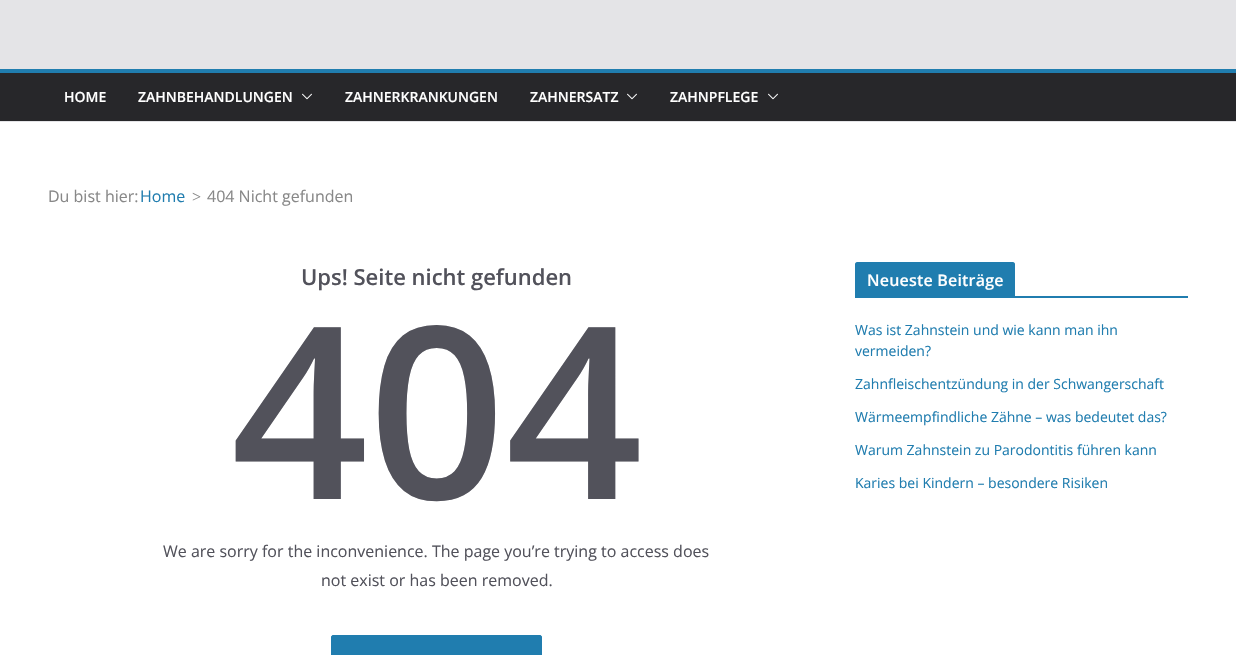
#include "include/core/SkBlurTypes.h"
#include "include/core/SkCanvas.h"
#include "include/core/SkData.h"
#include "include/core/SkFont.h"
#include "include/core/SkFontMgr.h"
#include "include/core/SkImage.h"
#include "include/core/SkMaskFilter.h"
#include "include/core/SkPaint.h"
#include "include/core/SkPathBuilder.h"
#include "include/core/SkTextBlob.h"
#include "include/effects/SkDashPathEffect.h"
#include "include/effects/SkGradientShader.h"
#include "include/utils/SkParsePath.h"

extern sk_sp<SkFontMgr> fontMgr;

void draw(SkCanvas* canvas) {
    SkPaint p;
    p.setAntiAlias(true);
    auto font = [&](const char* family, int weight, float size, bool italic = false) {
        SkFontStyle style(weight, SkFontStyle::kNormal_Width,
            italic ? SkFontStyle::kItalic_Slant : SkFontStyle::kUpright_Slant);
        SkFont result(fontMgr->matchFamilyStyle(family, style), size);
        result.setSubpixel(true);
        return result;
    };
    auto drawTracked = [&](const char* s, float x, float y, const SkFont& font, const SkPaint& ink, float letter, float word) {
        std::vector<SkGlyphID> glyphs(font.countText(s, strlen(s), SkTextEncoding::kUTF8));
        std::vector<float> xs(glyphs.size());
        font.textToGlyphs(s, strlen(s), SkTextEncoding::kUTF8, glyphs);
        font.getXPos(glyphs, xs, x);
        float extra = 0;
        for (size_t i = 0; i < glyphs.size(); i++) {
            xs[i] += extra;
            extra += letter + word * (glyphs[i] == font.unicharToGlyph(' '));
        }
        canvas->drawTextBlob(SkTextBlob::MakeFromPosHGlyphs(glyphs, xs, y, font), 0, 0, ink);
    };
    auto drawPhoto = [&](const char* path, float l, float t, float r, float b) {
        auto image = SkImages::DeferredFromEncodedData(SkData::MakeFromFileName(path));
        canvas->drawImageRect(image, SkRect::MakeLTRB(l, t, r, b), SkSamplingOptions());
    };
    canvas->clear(0xFFE4E4E7);
    p.setColor(0xFF27272A);
    canvas->drawRect(SkRect::MakeLTRB(0, 73, 1236, 121), p);
    p.setColor(0xFF207DAF);
    canvas->drawRect(SkRect::MakeLTRB(0, 69, 1236, 73), p);
    auto font1 = font("Open Sans", 600, 14);
    p.setColor(0xFFFFFFFF);
    canvas->drawString("HOME", 64, 102, font1, p);
    canvas->drawString("ZAHNBEHANDLUNGEN", 138, 102, font1, p);
    drawPhoto("media/1.png", 302, 93, 312, 100);
    canvas->drawString("ZAHNERKRANKUNGEN", 345, 102, font1, p);
    canvas->drawString("ZAHNERSATZ", 530, 102, font1, p);
    drawPhoto("media/1.png", 627, 93, 637, 100);
    canvas->drawString("ZAHNPFLEGE", 670, 102, font1, p);
    drawPhoto("media/1.png", 768, 93, 778, 100);
    canvas->drawRect(SkRect::MakeLTRB(0, 122, 1236, 655), p);
    auto font2 = font("Open Sans", 400, 16);
    p.setColor(0xFF888888);
    canvas->drawString("Du bist hier:", 48, 202, font2, p);
    p.setColor(0xFF207DAF);
    canvas->drawString("Home", 140, 202, font2, p);
    auto font3 = font("Liberation Serif", 400, 16);
    p.setColor(0xFF888888);
    canvas->drawString(">", 192, 202, font3, p);
    canvas->drawString("404 Nicht gefunden", 207, 202, font2, p);
    auto font4 = font("Open Sans", 600, 22);
    p.setColor(0xFF52525B);
    canvas->drawString("Ups! Seite nicht gefunden", 301, 285, font4, p);
    auto font5 = font("Open Sans", 600, 240);
    canvas->drawString("404", 231, 499, font5, p);
    canvas->drawString("We are sorry for the inconvenience. The page you’re trying to access does", 163, 557, font2, p);
    canvas->drawString("not exist or has been removed.", 321, 586, font2, p);
    p.setColor(0xFF207DAF);
    canvas->drawRoundRect(SkRect::MakeLTRB(331.5f, 635.5f, 541.5f, 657.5f), 1.5f, 1.5f, p);
    p.setStyle(SkPaint::kStroke_Style);
    p.setStrokeWidth(1);
    canvas->drawRoundRect(SkRect::MakeLTRB(331.5f, 635.5f, 541.5f, 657.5f), 1.5f, 1.5f, p);
    p.setStyle(SkPaint::kFill_Style);
    canvas->drawRect(SkRect::MakeLTRB(855, 296, 1188, 298), p);
    canvas->drawPath(SkPathBuilder().moveTo(857, 262).lineTo(1013, 262).cubicTo(1014, 262, 1015, 263, 1015, 264).lineTo(1015, 296).lineTo(855, 296).lineTo(855, 264).cubicTo(855, 263, 856, 262, 857, 262).close().detach(), p);
    auto font6 = font("Open Sans", 600, 16);
    p.setColor(0xFFFFFFFF);
    drawTracked("Neueste Beiträge", 867, 286, font6, p, 0.2f, 0);
    auto font7 = font("Open Sans", 400, 14);
    p.setColor(0xFF207DAF);
    {
        const struct { const char* s; float x, y; } items[] = {
            {"Was ist Zahnstein und wie kann man ihn", 855, 335},
            {"vermeiden?", 855, 356},
            {"Zahnfleischentzündung in der Schwangerschaft", 855, 389},
            {"Wärmeempfindliche Zähne – was bedeutet das?", 855, 422},
            {"Warum Zahnstein zu Parodontitis führen kann", 855, 455},
            {"Karies bei Kindern – besondere Risiken", 855, 488},
        };
        for (auto [s, x, y] : items) {
            canvas->drawString(s, x, y, font7, p);
        }
    }
}
